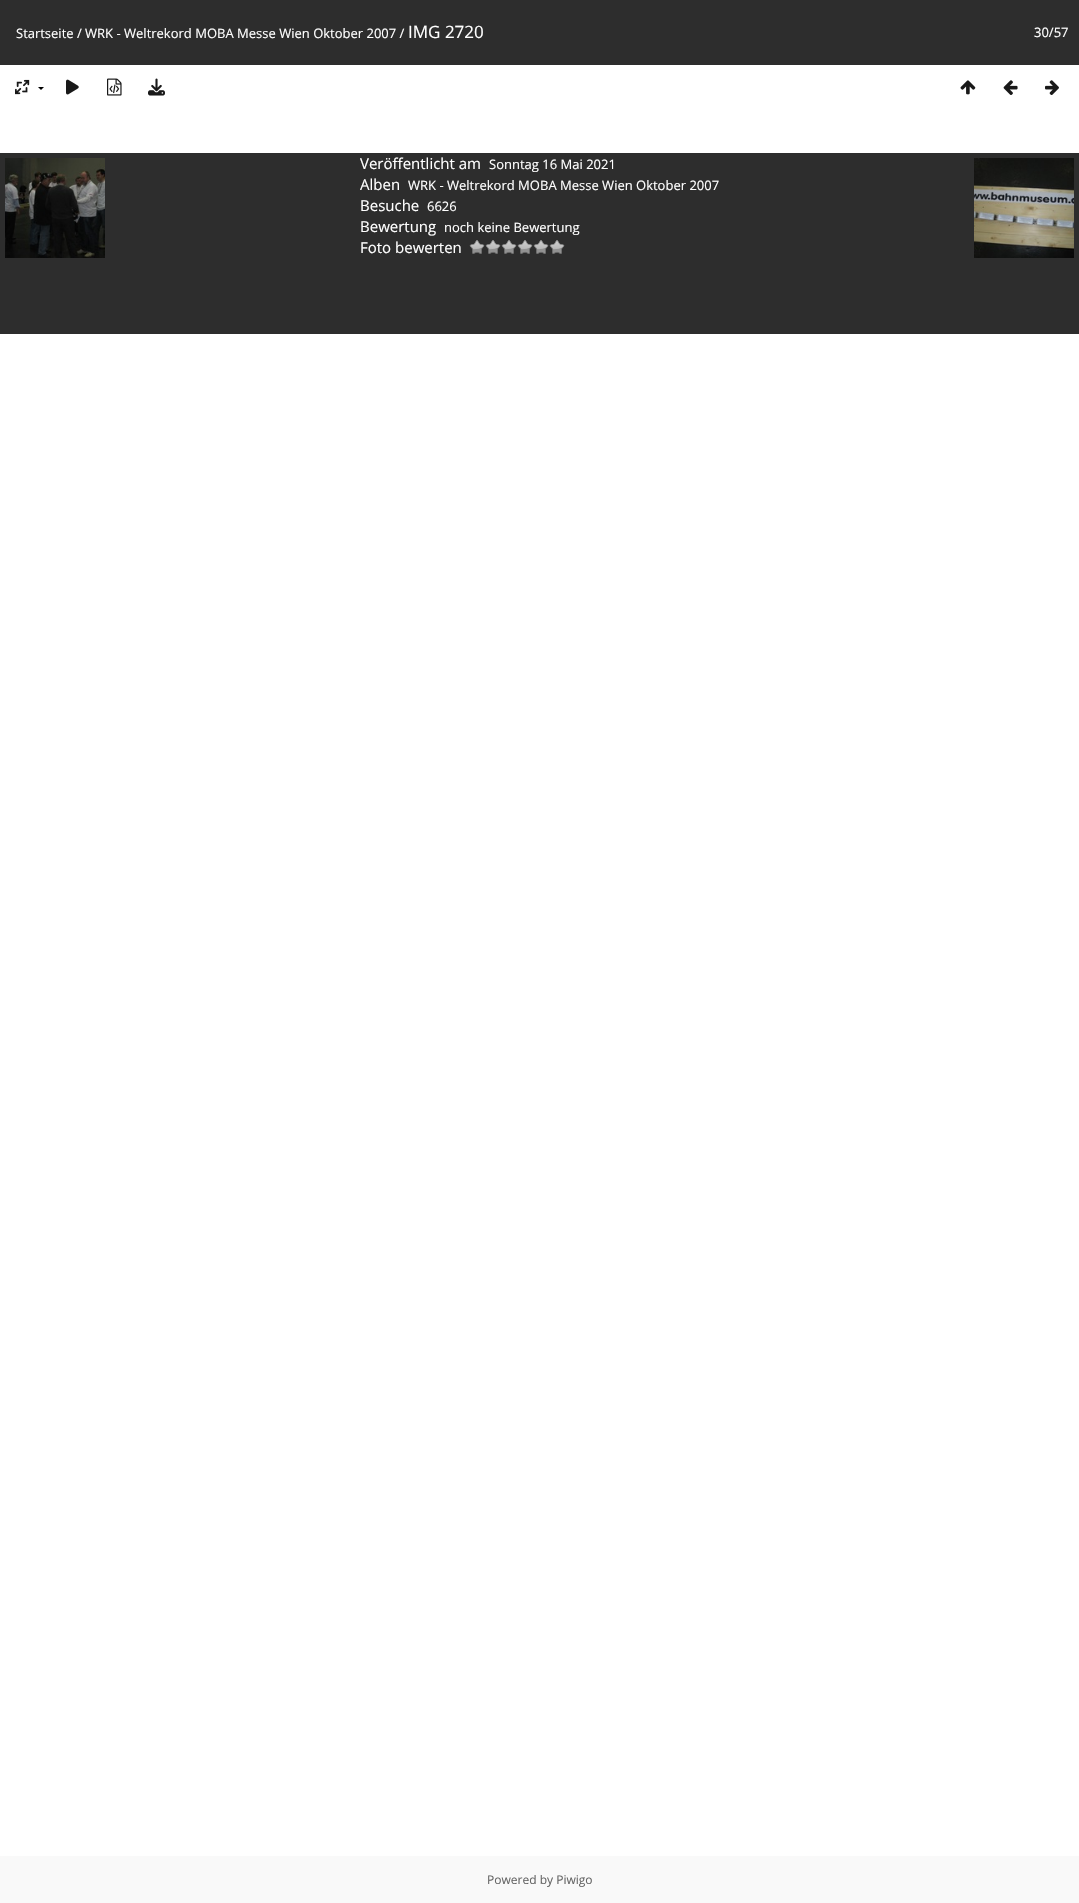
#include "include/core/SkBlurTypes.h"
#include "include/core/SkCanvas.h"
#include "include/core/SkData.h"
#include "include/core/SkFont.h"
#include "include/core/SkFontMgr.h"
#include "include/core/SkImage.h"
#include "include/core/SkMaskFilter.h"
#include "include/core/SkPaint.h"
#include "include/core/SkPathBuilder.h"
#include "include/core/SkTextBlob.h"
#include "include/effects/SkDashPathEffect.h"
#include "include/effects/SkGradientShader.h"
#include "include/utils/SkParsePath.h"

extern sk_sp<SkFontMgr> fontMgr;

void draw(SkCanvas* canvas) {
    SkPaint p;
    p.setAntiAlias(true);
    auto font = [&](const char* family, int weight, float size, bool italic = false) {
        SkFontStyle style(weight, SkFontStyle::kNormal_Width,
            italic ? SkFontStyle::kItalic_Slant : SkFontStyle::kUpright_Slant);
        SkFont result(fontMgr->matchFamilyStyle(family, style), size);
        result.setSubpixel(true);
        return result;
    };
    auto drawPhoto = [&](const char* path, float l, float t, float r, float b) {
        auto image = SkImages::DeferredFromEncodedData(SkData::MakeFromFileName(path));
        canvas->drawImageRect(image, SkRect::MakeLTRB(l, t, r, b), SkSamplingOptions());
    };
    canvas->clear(0xFFFFFFFF);
    p.setColor(0xFF2D2D2D);
    canvas->drawRect(SkRect::MakeLTRB(0, 0, 1079, 65), p);
    auto font1 = font("Open Sans", 400, 13);
    p.setColor(0xFFFFFFFF);
    canvas->drawString("Startseite / WRK - Weltrekord MOBA Messe Wien Oktober 2007 /", 16, 38, font1, p);
    auto font2 = font("Open Sans", 400, 17);
    canvas->drawString("IMG 2720", 408, 38, font2, p);
    canvas->drawString("30/57", 1034, 37, font1, p);
    drawPhoto("media/1.png", 15, 79, 30, 95);
    p.setColor(0xFF000000);
    canvas->drawPath(SkPathBuilder().moveTo(38, 87).lineTo(44, 87).lineTo(41, 90).close().detach(), p);
    drawPhoto("media/2.png", 66, 79, 79, 95);
    drawPhoto("media/3.png", 107, 78, 122, 96);
    drawPhoto("media/4.png", 148, 78, 165, 96);
    drawPhoto("media/5.png", 960, 80, 976, 95);
    drawPhoto("media/6.png", 1003, 80, 1018, 95);
    drawPhoto("media/7.png", 1045, 80, 1059, 95);
    p.setColor(0xFF2D2D2D);
    canvas->drawRect(SkRect::MakeLTRB(0, 153, 1079, 334), p);
    auto font3 = font("Open Sans", 400, 15);
    p.setColor(0xFFFFFFFF);
    canvas->drawString("Veröffentlicht am", 360, 169, font3, p);
    canvas->drawString("Sonntag 16 Mai 2021", 489, 169, font1, p);
    canvas->drawString("Alben", 360, 190, font3, p);
    canvas->drawString("WRK - Weltrekord MOBA Messe Wien Oktober 2007", 408, 190, font1, p);
    canvas->drawString("Besuche", 360, 211, font3, p);
    canvas->drawString("6626", 427, 211, font1, p);
    canvas->drawString("Bewertung", 360, 232, font3, p);
    canvas->drawString("noch keine Bewertung", 444, 232, font1, p);
    canvas->drawString("Foto bewerten", 360, 253, font3, p);
    drawPhoto("media/8.png", 469, 240, 485, 254);
    drawPhoto("media/8.png", 485, 240, 501, 254);
    drawPhoto("media/8.png", 501, 240, 517, 254);
    drawPhoto("media/8.png", 517, 240, 533, 254);
    drawPhoto("media/8.png", 533, 240, 549, 254);
    drawPhoto("media/8.png", 549, 240, 565, 254);
    drawPhoto("media/9.png", 5, 158, 105, 258);
    drawPhoto("media/10.png", 974, 158, 1074, 258);
    p.setColor(0xFFF9F9F9);
    canvas->drawRect(SkRect::MakeLTRB(0, 1856, 1079, 1903), p);
    auto font4 = font("Open Sans", 400, 12);
    p.setColor(0xFF666666);
    canvas->drawString("Powered by Piwigo", 487, 1884, font4, p);
}
